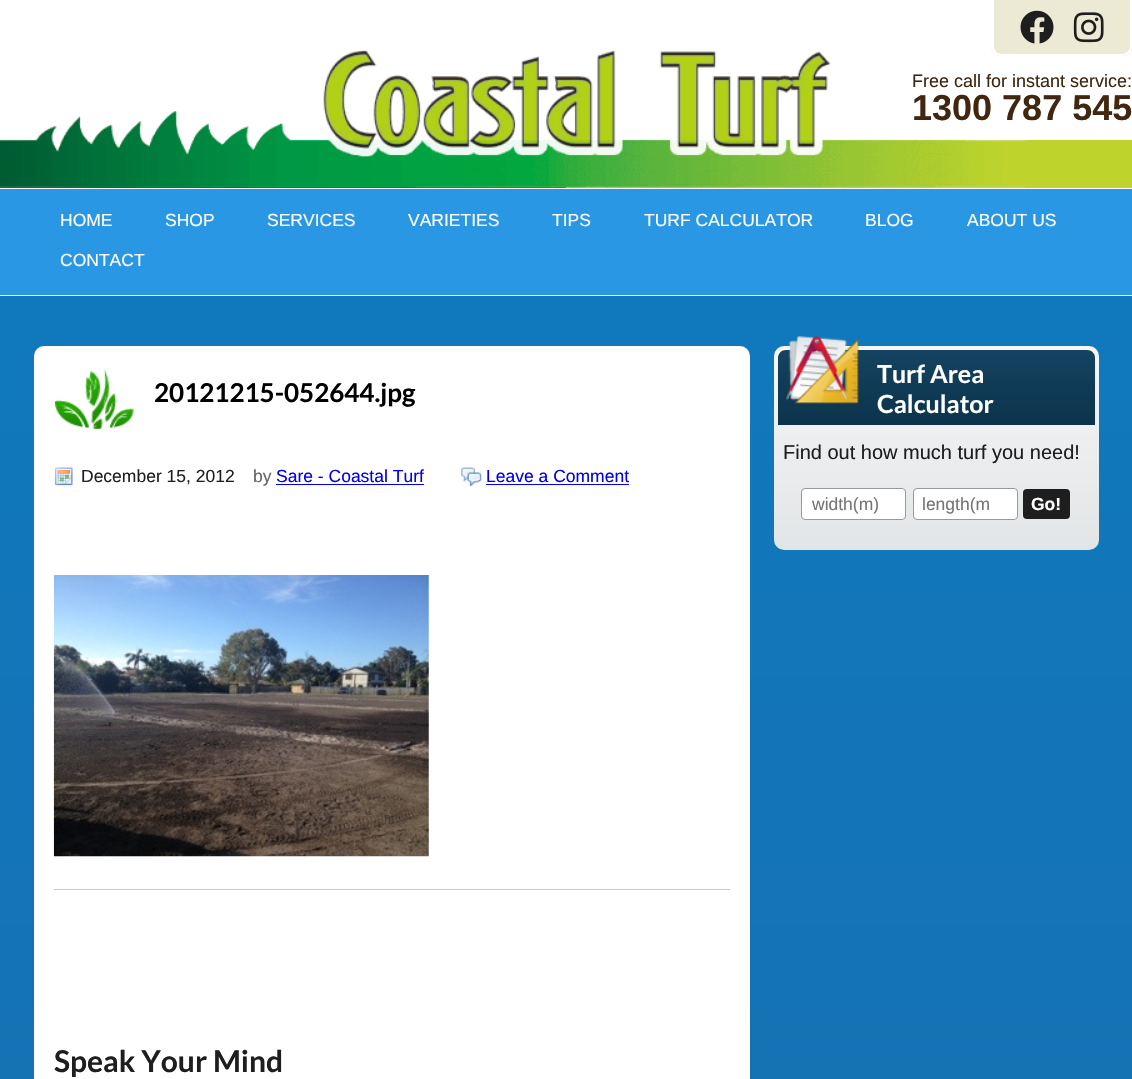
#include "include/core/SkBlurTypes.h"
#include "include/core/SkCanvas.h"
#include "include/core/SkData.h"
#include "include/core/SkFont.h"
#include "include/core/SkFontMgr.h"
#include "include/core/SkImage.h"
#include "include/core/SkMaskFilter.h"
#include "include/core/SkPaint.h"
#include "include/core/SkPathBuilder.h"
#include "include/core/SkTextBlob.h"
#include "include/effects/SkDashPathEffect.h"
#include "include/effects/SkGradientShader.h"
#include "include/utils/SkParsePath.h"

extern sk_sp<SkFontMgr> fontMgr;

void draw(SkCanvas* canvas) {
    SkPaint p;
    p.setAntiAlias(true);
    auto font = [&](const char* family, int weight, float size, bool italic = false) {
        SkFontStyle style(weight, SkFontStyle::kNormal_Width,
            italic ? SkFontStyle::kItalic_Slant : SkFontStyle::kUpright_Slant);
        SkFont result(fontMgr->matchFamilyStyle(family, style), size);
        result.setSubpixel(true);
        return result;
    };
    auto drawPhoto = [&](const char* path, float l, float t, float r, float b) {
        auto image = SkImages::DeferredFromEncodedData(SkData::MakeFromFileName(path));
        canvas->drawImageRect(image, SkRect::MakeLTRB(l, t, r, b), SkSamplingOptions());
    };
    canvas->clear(0xFFFFFFFF);
    {
        const SkColor colors[] = {0xFF0E7BC1, 0xFF196DAB};
        const float stops[] = {0, 1};
        const SkPoint ends[] = {{566, 0}, {566, 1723}};
        p.setShader(SkGradientShader::MakeLinear(ends, colors, stops, 2, SkTileMode::kClamp));
        p.setAlpha(255);
    }
    canvas->drawRect(SkRect::MakeLTRB(0, 296, 1132, 1079), p);
    p.setShader(nullptr);
    p.setColor(0xFF005D33);
    canvas->drawRect(SkRect::MakeLTRB(0, 187, 566, 188), p);
    p.setColor(0xFFBED42D);
    canvas->drawRect(SkRect::MakeLTRB(566, 140, 1132, 188), p);
    drawPhoto("media/1.png", 0, 111, 1025, 188);
    p.setColor(0xFFECEAD4);
    canvas->drawPath(SkPathBuilder().moveTo(991, 0).lineTo(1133, 0).lineTo(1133, 46).cubicTo(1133, 51.5f, 1128.5f, 56, 1123, 56).lineTo(1001, 56).cubicTo(995.5f, 56, 991, 51.5f, 991, 46).close().detach(), p);
    p.setColor(0xFFFFFFFF);
    canvas->drawPath(SkPathBuilder(SkPathFillType::kEvenOdd).moveTo(991, 0).lineTo(1132, 0).lineTo(1132, 46).cubicTo(1132, 52, 1128, 56, 1122, 56).lineTo(1001, 56).cubicTo(996, 56, 991, 52, 991, 46).close().moveTo(994, 0).lineTo(1130, 0).lineTo(1130, 46).cubicTo(1130, 50, 1127, 54, 1122, 54).lineTo(1001, 54).cubicTo(997, 54, 994, 50, 994, 46).close().detach(), p);
    drawPhoto("media/2.png", 1020, 10, 1054, 44);
    drawPhoto("media/3.png", 1073, 12, 1104, 43);
    drawPhoto("media/4.png", 323, 50, 831, 157);
    auto font1 = font("Liberation Sans", 400, 18);
    p.setColor(0xFF41270F);
    canvas->drawString("Free call for instant service:", 912, 87, font1, p);
    auto font2 = font("Liberation Sans", 700, 36);
    canvas->drawString("1300 787 545", 912, 120, font2, p);
    p.setColor(0xFF2997E4);
    canvas->drawRect(SkRect::MakeLTRB(0, 189, 1132, 295), p);
    auto font3 = font("Liberation Sans", 400, 17.5f);
    p.setColor(0xFFFFFFFF);
    {
        const struct { const char* s; float x, y; } items[] = {
            {"HOME", 60, 226},
            {"SHOP", 165, 226},
            {"SERVICES", 267, 226},
            {"VARIETIES", 408, 226},
            {"TIPS", 552, 226},
            {"TURF CALCULATOR", 644, 226},
            {"BLOG", 865, 226},
            {"ABOUT US", 967, 226},
            {"CONTACT", 60, 266},
        };
        for (auto [s, x, y] : items) {
            canvas->drawString(s, x, y, font3, p);
        }
    }
    canvas->drawRoundRect(SkRect::MakeLTRB(34, 346, 750, 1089), 10, 10, p);
    drawPhoto("media/5.png", 54, 370, 134, 429);
    auto font4 = font("Lato", 700, 26);
    p.setColor(0xFF000000);
    canvas->drawString("20121215-052644.jpg", 154, 402, font4, p);
    drawPhoto("media/6.png", 54, 467, 73, 486);
    p.setColor(0xFF1E1E1E);
    canvas->drawString("December 15, 2012", 81, 482, font3, p);
    p.setColor(0xFF636363);
    canvas->drawString("by", 253, 482, font3, p);
    p.setColor(0xFF0000EE);
    canvas->drawString("Sare - Coastal Turf", 276, 482, font3, p);
    canvas->drawRect(SkRect::MakeLTRB(276, 484, 424, 485), p);
    drawPhoto("media/7.png", 461, 467, 482, 487);
    canvas->drawString("Leave a Comment", 486, 482, font3, p);
    canvas->drawRect(SkRect::MakeLTRB(486, 484, 629, 485), p);
    drawPhoto("media/8.png", 53, 575, 429, 857);
    p.setColor(0xFFCCCCCC);
    canvas->drawRect(SkRect::MakeLTRB(54, 889, 730, 890), p);
    auto font5 = font("Lato", 700, 30);
    p.setColor(0xFF1E1E1E);
    canvas->drawString("Speak Your Mind", 54, 1072, font5, p);
    {
        const SkColor colors[] = {0xFFF6F6F6, 0xFFE2E5E7};
        const float stops[] = {0, 1};
        const SkPoint ends[] = {{936, 346}, {936, 550}};
        p.setShader(SkGradientShader::MakeLinear(ends, colors, stops, 2, SkTileMode::kClamp));
        p.setAlpha(255);
    }
    canvas->drawRoundRect(SkRect::MakeLTRB(774, 346, 1099, 550), 10, 10, p);
    {
        const SkColor colors[] = {0xFF144361, 0xFF0C334B};
        const float stops[] = {0, 1};
        const SkPoint ends[] = {{936, 350}, {936, 425}};
        p.setShader(SkGradientShader::MakeLinear(ends, colors, stops, 2, SkTileMode::kClamp));
        p.setAlpha(255);
    }
    canvas->drawPath(SkPathBuilder().moveTo(786, 350).lineTo(1087, 350).cubicTo(1091.5f, 350, 1095, 353.5f, 1095, 358).lineTo(1095, 425).lineTo(778, 425).lineTo(778, 358).cubicTo(778, 353.5f, 781.5f, 350, 786, 350).close().detach(), p);
    drawPhoto("media/9.png", 786, 336, 859, 404);
    auto font6 = font("Lato", 700, 25);
    p.setShader(nullptr);
    p.setColor(0xFFFFFFFF);
    canvas->drawString("Turf Area", 877, 383, font6, p);
    canvas->drawString("Calculator", 877, 413, font6, p);
    auto font7 = font("Liberation Sans", 400, 20);
    p.setColor(0xFF1E1E1E);
    canvas->drawString("Find out how much turf you need!", 783, 459, font7, p);
    p.setColor(0xFFFFFFFF);
    canvas->drawRoundRect(SkRect::MakeLTRB(801.5f, 488.5f, 905.5f, 519.5f), 3.5f, 3.5f, p);
    p.setStyle(SkPaint::kStroke_Style);
    p.setStrokeWidth(1);
    p.setColor(0xFF999999);
    canvas->drawRoundRect(SkRect::MakeLTRB(801.5f, 488.5f, 905.5f, 519.5f), 3.5f, 3.5f, p);
    p.setStyle(SkPaint::kFill_Style);
    p.setColor(0xFF757575);
    canvas->drawString("width(m)", 812, 510, font3, p);
    p.setColor(0xFFFFFFFF);
    canvas->drawRoundRect(SkRect::MakeLTRB(913.5f, 488.5f, 1017.5f, 519.5f), 3.5f, 3.5f, p);
    p.setStyle(SkPaint::kStroke_Style);
    p.setColor(0xFF999999);
    canvas->drawRoundRect(SkRect::MakeLTRB(913.5f, 488.5f, 1017.5f, 519.5f), 3.5f, 3.5f, p);
    p.setStyle(SkPaint::kFill_Style);
    p.setColor(0xFF757575);
    canvas->drawString("length(m", 922, 510, font3, p);
    p.setColor(0xFF1E1E1E);
    canvas->drawRoundRect(SkRect::MakeLTRB(1023, 489, 1070, 519), 4, 4, p);
    auto font8 = font("Liberation Sans", 700, 17.5f);
    p.setColor(0xFFFFFFFF);
    canvas->drawString("Go!", 1031, 510, font8, p);
}
